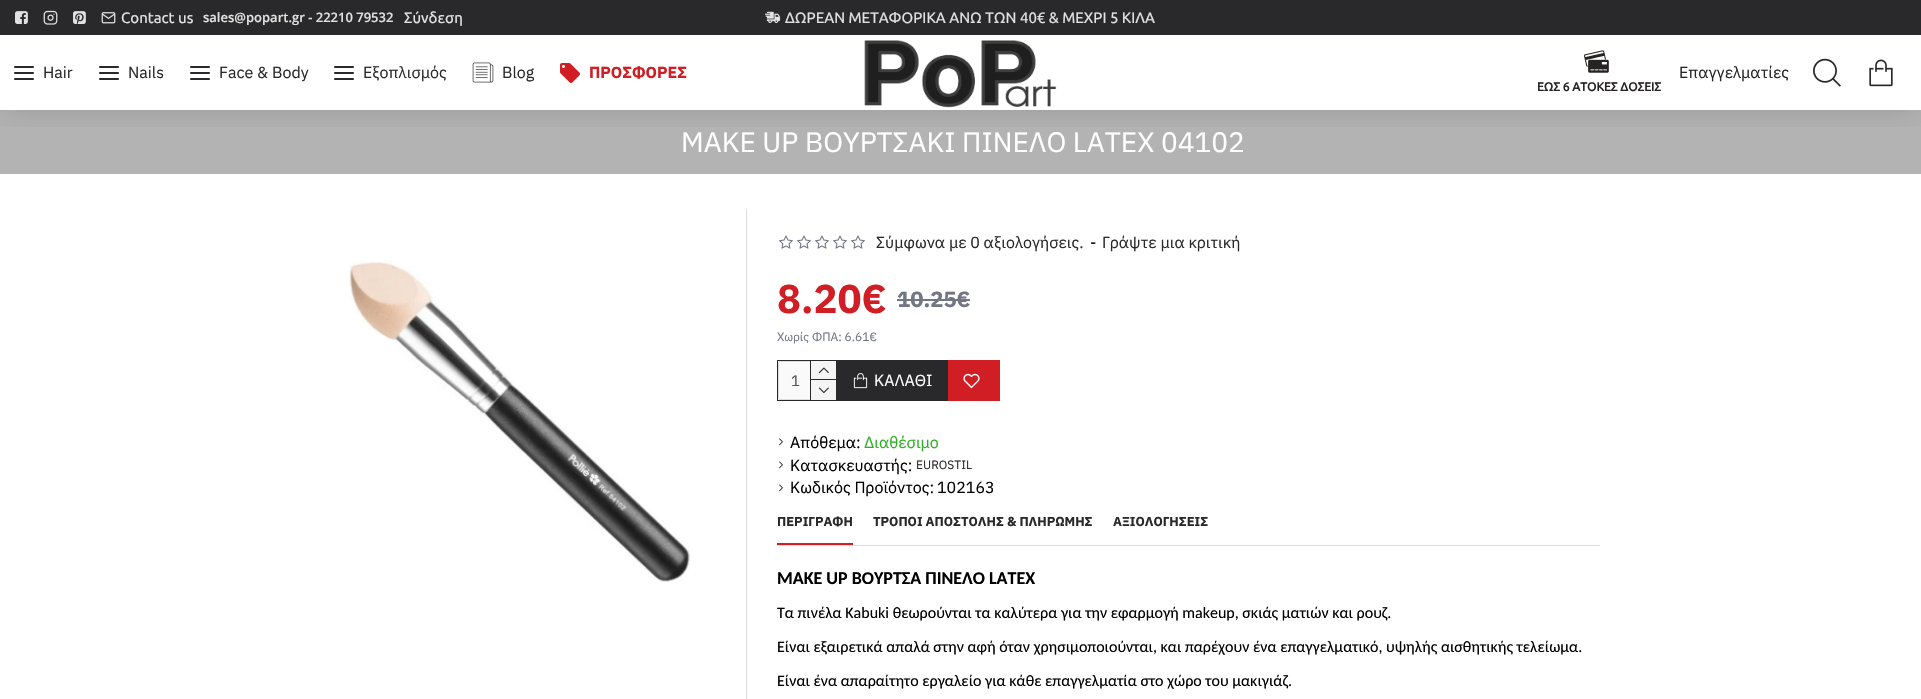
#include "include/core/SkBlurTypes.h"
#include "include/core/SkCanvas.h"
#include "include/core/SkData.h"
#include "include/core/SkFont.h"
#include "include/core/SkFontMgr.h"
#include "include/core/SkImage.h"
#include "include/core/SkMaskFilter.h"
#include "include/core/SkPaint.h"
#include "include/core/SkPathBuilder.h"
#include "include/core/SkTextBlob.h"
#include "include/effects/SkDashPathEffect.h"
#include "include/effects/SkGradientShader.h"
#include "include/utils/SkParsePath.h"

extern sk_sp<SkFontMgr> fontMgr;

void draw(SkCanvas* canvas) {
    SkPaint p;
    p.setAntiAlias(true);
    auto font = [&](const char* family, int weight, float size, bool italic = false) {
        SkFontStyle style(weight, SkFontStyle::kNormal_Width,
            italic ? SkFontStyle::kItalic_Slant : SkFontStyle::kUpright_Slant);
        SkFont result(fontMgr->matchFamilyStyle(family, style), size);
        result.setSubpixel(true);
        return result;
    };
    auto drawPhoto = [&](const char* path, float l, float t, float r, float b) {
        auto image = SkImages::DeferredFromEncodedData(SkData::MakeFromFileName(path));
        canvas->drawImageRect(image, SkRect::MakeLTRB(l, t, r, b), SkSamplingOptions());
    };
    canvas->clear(0xFFFFFFFF);
    p.setColor(0xFFB3B3B3);
    canvas->drawRect(SkRect::MakeLTRB(0, 110, 1921, 174), p);
    canvas->save();
    canvas->clipRect(SkRect::MakeLTRB(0, 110, 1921, 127));
    p.setColor(0x26000000);
    p.setMaskFilter(SkMaskFilter::MakeBlur(kNormal_SkBlurStyle, 15));
    canvas->drawRect(SkRect::MakeLTRB(5, 10, 1916, 110), p);
    p.setMaskFilter(nullptr);
    canvas->restore();
    p.setColor(0xFF29292B);
    canvas->drawRect(SkRect::MakeLTRB(0, 0, 1921, 35), p);
    drawPhoto("media/1.png", 15, 11, 28, 24);
    drawPhoto("media/2.png", 43, 10, 58, 25);
    drawPhoto("media/3.png", 73, 11, 86, 24);
    drawPhoto("media/4.png", 101, 12, 116, 24);
    auto font1 = font("Ubuntu", 400, 15);
    p.setColor(0xFFE1E1E1);
    canvas->drawString("Contact us", 121, 23, font1, p);
    auto font2 = font("Open Sans", 600, 13);
    canvas->drawString("sales@popart.gr - 22210 79532", 203, 22, font2, p);
    canvas->drawString("Σύνδεση", 404, 23, font1, p);
    drawPhoto("media/5.png", 765, 11, 781, 23);
    canvas->drawString("ΔΩΡΕΑΝ ΜΕΤΑΦΟΡΙΚΑ ΑΝΩ ΤΩΝ 40€ & ΜΕΧΡΙ 5 ΚΙΛΑ", 785, 23, font1, p);
    drawPhoto("media/6.png", 14, 66, 34, 80);
    auto font3 = font("IBM Plex Sans", 400, 16);
    p.setColor(0xFF29292B);
    canvas->drawString("Hair", 43, 78, font3, p);
    drawPhoto("media/6.png", 99, 66, 119, 80);
    canvas->drawString("Nails", 128, 78, font3, p);
    drawPhoto("media/6.png", 190, 66, 210, 80);
    canvas->drawString("Face & Body", 219, 78, font3, p);
    drawPhoto("media/6.png", 334, 66, 354, 80);
    canvas->drawString("Εξοπλισμός", 363, 78, font3, p);
    drawPhoto("media/7.png", 472, 62, 494, 83);
    canvas->drawString("Blog", 502, 78, font3, p);
    drawPhoto("media/8.png", 560, 63, 580, 83);
    auto font4 = font("IBM Plex Sans", 700, 16);
    p.setColor(0xFFD01E24);
    canvas->drawString("ΠΡΟΣΦΟΡΕΣ", 589, 78, font4, p);
    drawPhoto("media/9.png", 864, 40, 1057, 108);
    p.setColor(0xFF262323);
    canvas->drawString("Επαγγελματίες", 1679, 78, font3, p);
    drawPhoto("media/10.png", 1584, 50, 1609, 73);
    auto font5 = font("Ubuntu", 700, 12);
    canvas->drawString("ΕΩΣ 6 ΑΤΟΚΕΣ ΔΟΣΕΙΣ", 1537, 91, font5, p);
    drawPhoto("media/11.png", 1813, 58, 1841, 87);
    drawPhoto("media/12.png", 1869, 59, 1893, 87);
    auto font6 = font("IBM Plex Sans", 400, 28);
    p.setColor(0xFFFFFFFF);
    canvas->drawString("MAKE UP ΒΟΥΡΤΣΑΚΙ ΠΙΝΕΛΟ LATEX 04102", 681, 152, font6, p);
    p.setColor(0xFFDDDDDD);
    canvas->drawRect(SkRect::MakeLTRB(746, 209, 747, 699), p);
    drawPhoto("media/13.png", 349, 261, 690, 582);
    drawPhoto("media/14.png", 779, 235, 793, 249);
    drawPhoto("media/14.png", 797, 235, 811, 249);
    drawPhoto("media/14.png", 815, 235, 829, 249);
    drawPhoto("media/14.png", 833, 235, 847, 249);
    drawPhoto("media/14.png", 851, 235, 865, 249);
    p.setColor(0xFF29292B);
    canvas->drawString("Σύμφωνα με 0 αξιολογήσεις.", 876, 248, font3, p);
    p.setColor(0xFF000000);
    canvas->drawString("-", 1090, 248, font3, p);
    p.setColor(0xFF29292B);
    canvas->drawString("Γράψτε μια κριτική", 1102, 248, font3, p);
    auto font7 = font("IBM Plex Sans", 700, 40);
    p.setColor(0xFFD01E24);
    canvas->drawString("8.20€", 777, 313, font7, p);
    auto font8 = font("IBM Plex Sans", 700, 22);
    p.setColor(0xFF727684);
    canvas->drawString("10.25€", 897, 307, font8, p);
    canvas->drawRect(SkRect::MakeLTRB(897, 299, 970, 301), p);
    auto font9 = font("IBM Plex Sans", 400, 12);
    canvas->drawString("Χωρίς ΦΠΑ: 6.61€", 777, 341, font9, p);
    p.setStyle(SkPaint::kStroke_Style);
    p.setStrokeWidth(1);
    p.setColor(0xFF29292B);
    canvas->drawRect(SkRect::MakeLTRB(777.5f, 360.5f, 836.5f, 400.5f), p);
    p.setStyle(SkPaint::kFill_Style);
    p.setColor(0xFFFAFAFA);
    canvas->drawRoundRect(SkRect::MakeLTRB(778.5f, 361.5f, 835.5f, 399.5f), 1.5f, 1.5f, p);
    p.setStyle(SkPaint::kStroke_Style);
    p.setColor(0xFFDDDDDD);
    canvas->drawRoundRect(SkRect::MakeLTRB(778.5f, 361.5f, 835.5f, 399.5f), 1.5f, 1.5f, p);
    auto font10 = font("IBM Plex Sans", 400, 15);
    p.setStyle(SkPaint::kFill_Style);
    p.setColor(0xFF555555);
    canvas->drawString("1", 791, 386, font10, p);
    {
        const struct { float l, t, r, b; SkColor color; } items[] = {
            {810, 361, 811, 400, 0xFF29292B},
            {811, 361, 836, 379, 0xFFF5F5F5},
            {811, 379, 836, 380, 0xFF29292B},
        };
        for (auto [l, t, r, b, color] : items) {
            p.setColor(color);
            canvas->drawRect(SkRect::MakeLTRB(l, t, r, b), p);
        }
    }
    drawPhoto("media/15.png", 818, 367, 829, 373);
    p.setColor(0xFFF5F5F5);
    canvas->drawRect(SkRect::MakeLTRB(811, 380, 836, 400), p);
    drawPhoto("media/16.png", 818, 387, 829, 393);
    p.setColor(0xFF29292B);
    canvas->drawRect(SkRect::MakeLTRB(837, 360, 948, 401), p);
    drawPhoto("media/17.png", 853, 373, 868, 389);
    p.setColor(0xFFFFFFFF);
    canvas->drawString("ΚΑΛΑΘΙ", 874, 386, font3, p);
    p.setColor(0xFFD01E24);
    canvas->drawRect(SkRect::MakeLTRB(948, 360, 1000, 401), p);
    drawPhoto("media/18.png", 963, 373, 980, 389);
    drawPhoto("media/19.png", 779, 438, 783, 446);
    p.setColor(0xFF000000);
    canvas->drawString("Απόθεμα:", 790, 448, font3, p);
    p.setColor(0xFF2EAF23);
    canvas->drawString("Διαθέσιμο", 864, 448, font3, p);
    drawPhoto("media/19.png", 779, 461, 783, 469);
    p.setColor(0xFF000000);
    canvas->drawString("Κατασκευαστής:", 790, 471, font3, p);
    p.setColor(0xFF29292B);
    canvas->drawString("EUROSTIL", 916, 469, font9, p);
    drawPhoto("media/19.png", 779, 484, 783, 492);
    p.setColor(0xFF000000);
    canvas->drawString("Κωδικός Προϊόντος:", 790, 493, font3, p);
    canvas->drawString("102163", 937, 493, font3, p);
    p.setColor(0xFFDDDDDD);
    canvas->drawRect(SkRect::MakeLTRB(777, 545, 1600, 546), p);
    p.setColor(0xFFD01E24);
    canvas->drawRect(SkRect::MakeLTRB(777, 543, 853, 545), p);
    auto font11 = font("IBM Plex Sans", 700, 13);
    p.setColor(0xFF29292B);
    {
        const struct { const char* s; float x, y; } items[] = {
            {"ΠΕΡΙΓΡΑΦΗ", 777, 526},
            {"ΤΡΟΠΟΙ ΑΠΟΣΤΟΛΗΣ & ΠΛΗΡΩΜΗΣ", 873, 526},
            {"ΑΞΙΟΛΟΓΗΣΕΙΣ", 1113, 526},
        };
        for (auto [s, x, y] : items) {
            canvas->drawString(s, x, y, font11, p);
        }
    }
    auto font12 = font("Carlito", 700, 18);
    p.setColor(0xFF000000);
    canvas->drawString("MAKE UP ΒΟΥΡΤΣΑ ΠΙΝΕΛΟ LATEX", 777, 584, font12, p);
    auto font13 = font("Carlito", 400, 16);
    {
        const struct { const char* s; float x, y; } items[] = {
            {"Τα πινέλα Kabuki θεωρούνται τα καλύτερα για την εφαρμογή makeup, σκιάς ματιών και ρουζ.", 777, 618},
            {"Είναι εξαιρετικά απαλά στην αφή όταν χρησιμοποιούνται, και παρέχουν ένα επαγγελματικό, υψηλής αισθητικής τελείωμα.", 777, 652},
            {"Είναι ένα απαραίτητο εργαλείο για κάθε επαγγελματία στο χώρο του μακιγιάζ.", 777, 686},
        };
        for (auto [s, x, y] : items) {
            canvas->drawString(s, x, y, font13, p);
        }
    }
}
